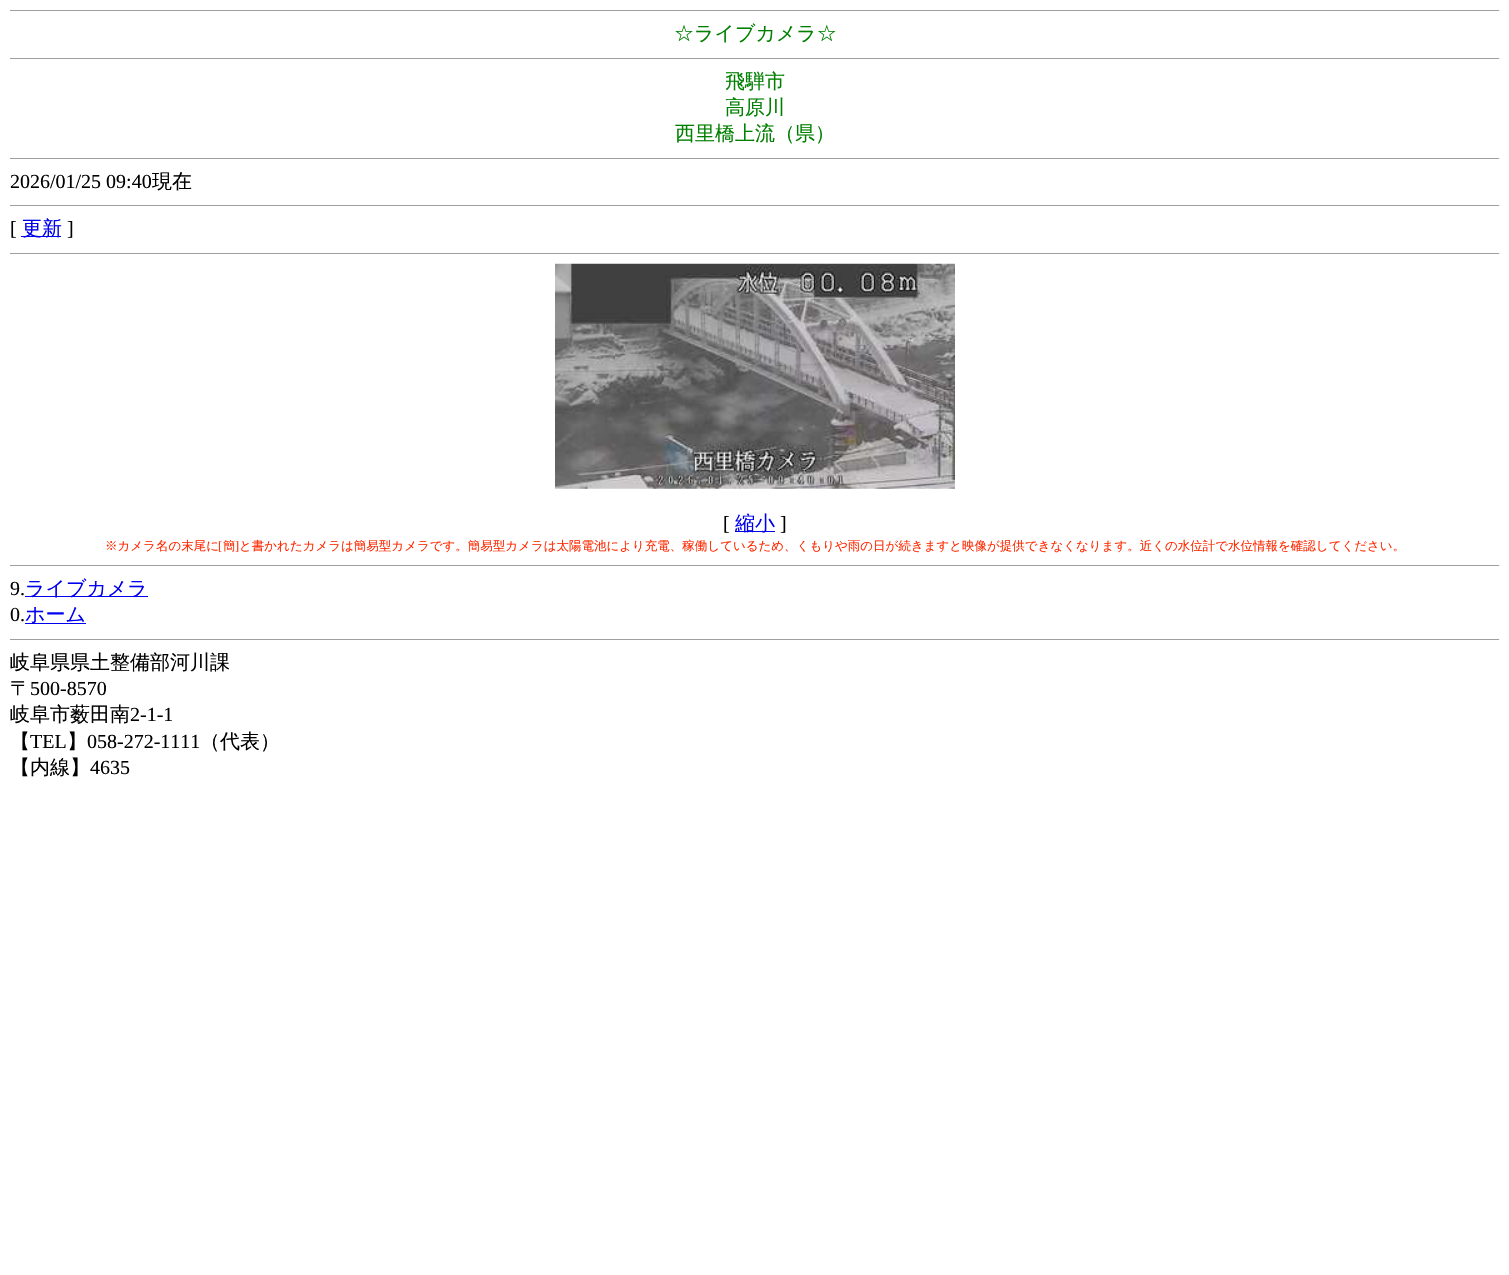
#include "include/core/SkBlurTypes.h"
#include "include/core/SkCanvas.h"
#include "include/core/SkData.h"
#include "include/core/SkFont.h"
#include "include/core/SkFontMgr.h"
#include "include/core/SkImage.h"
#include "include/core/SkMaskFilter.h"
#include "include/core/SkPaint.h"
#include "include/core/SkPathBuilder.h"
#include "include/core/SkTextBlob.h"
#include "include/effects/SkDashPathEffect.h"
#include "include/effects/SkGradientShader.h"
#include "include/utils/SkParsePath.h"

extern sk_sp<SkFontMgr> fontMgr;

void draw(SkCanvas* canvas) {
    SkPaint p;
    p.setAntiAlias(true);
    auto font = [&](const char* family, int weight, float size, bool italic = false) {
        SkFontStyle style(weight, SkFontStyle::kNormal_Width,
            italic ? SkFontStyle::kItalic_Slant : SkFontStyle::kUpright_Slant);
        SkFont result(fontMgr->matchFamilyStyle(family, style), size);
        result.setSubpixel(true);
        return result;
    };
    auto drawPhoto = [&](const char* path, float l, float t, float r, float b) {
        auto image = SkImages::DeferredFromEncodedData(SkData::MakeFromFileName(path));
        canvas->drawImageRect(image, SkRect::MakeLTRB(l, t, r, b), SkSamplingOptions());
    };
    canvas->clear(0xFFFFFFFF);
    p.setColor(0xFF9F9F9F);
    canvas->drawRect(SkRect::MakeLTRB(10, 10, 1500, 11), p);
    p.setColor(0xFFEEEEEE);
    canvas->drawRect(SkRect::MakeLTRB(1499, 10, 1500, 11), p);
    auto font1 = font("WenQuanYi Zen Hei", 500, 20);
    p.setColor(0xFF008000);
    canvas->drawString("☆ライブカメラ☆", 674, 40, font1, p);
    p.setColor(0xFF9F9F9F);
    canvas->drawRect(SkRect::MakeLTRB(10, 58, 1500, 59), p);
    p.setColor(0xFFEEEEEE);
    canvas->drawRect(SkRect::MakeLTRB(1499, 58, 1500, 59), p);
    p.setColor(0xFF008000);
    {
        const struct { const char* s; float x, y; } items[] = {
            {"飛騨市", 725, 88},
            {"高原川", 725, 114},
            {"西里橋上流（県）", 675, 140},
        };
        for (auto [s, x, y] : items) {
            canvas->drawString(s, x, y, font1, p);
        }
    }
    p.setColor(0xFF9F9F9F);
    canvas->drawRect(SkRect::MakeLTRB(10, 158, 1500, 159), p);
    p.setColor(0xFFEEEEEE);
    canvas->drawRect(SkRect::MakeLTRB(1499, 158, 1500, 159), p);
    auto font2 = font("Liberation Serif", 400, 20);
    p.setColor(0xFF000000);
    canvas->drawString("2026/01/25 09:40", 10, 188, font2, p);
    canvas->drawString("現在", 152, 188, font1, p);
    p.setColor(0xFF9F9F9F);
    canvas->drawRect(SkRect::MakeLTRB(10, 205, 1500, 206), p);
    p.setColor(0xFFEEEEEE);
    canvas->drawRect(SkRect::MakeLTRB(1499, 205, 1500, 206), p);
    p.setColor(0xFF000000);
    canvas->drawString("[", 10, 235, font2, p);
    p.setColor(0xFF0000EE);
    canvas->drawRect(SkRect::MakeLTRB(21, 236, 61, 237), p);
    canvas->drawString("更新", 22, 235, font1, p);
    p.setColor(0xFF000000);
    canvas->drawString("]", 67, 235, font2, p);
    p.setColor(0xFF9F9F9F);
    canvas->drawRect(SkRect::MakeLTRB(10, 253, 1500, 254), p);
    p.setColor(0xFFEEEEEE);
    canvas->drawRect(SkRect::MakeLTRB(1499, 253, 1500, 254), p);
    drawPhoto("media/1.png", 555, 263, 955, 489);
    p.setColor(0xFF000000);
    canvas->drawString("[", 723, 530, font2, p);
    p.setColor(0xFF0000EE);
    canvas->drawRect(SkRect::MakeLTRB(735, 531, 775, 532), p);
    canvas->drawString("縮小", 735, 530, font1, p);
    p.setColor(0xFF000000);
    canvas->drawString("]", 780, 530, font2, p);
    auto font3 = font("WenQuanYi Zen Hei", 500, 12.5f);
    p.setColor(0xFFFF2800);
    canvas->drawString("※カメラ名の末尾に", 105, 550, font3, p);
    auto font4 = font("Liberation Serif", 400, 12.5f);
    canvas->drawString("[", 218, 550, font4, p);
    canvas->drawString("簡", 223, 550, font3, p);
    canvas->drawString("]", 235, 550, font4, p);
    canvas->drawString("と書かれたカメラは簡易型カメラです。簡易型カメラは太陽電池により充電、稼働しているため、くもりや雨の日が続きますと映像が提供できなくなります。近くの水位計で水位情報を確認してください。", 239, 550, font3, p);
    p.setColor(0xFF9F9F9F);
    canvas->drawRect(SkRect::MakeLTRB(10, 565, 1500, 566), p);
    p.setColor(0xFFEEEEEE);
    canvas->drawRect(SkRect::MakeLTRB(1499, 565, 1500, 566), p);
    p.setColor(0xFF000000);
    canvas->drawString("9.", 10, 595, font2, p);
    p.setColor(0xFF0000EE);
    canvas->drawRect(SkRect::MakeLTRB(25, 596, 148, 597), p);
    canvas->drawString("ライブカメラ", 25, 595, font1, p);
    p.setColor(0xFF000000);
    canvas->drawString("0.", 10, 621, font2, p);
    p.setColor(0xFF0000EE);
    canvas->drawRect(SkRect::MakeLTRB(25, 623, 86, 624), p);
    canvas->drawString("ホーム", 25, 621, font1, p);
    p.setColor(0xFF9F9F9F);
    canvas->drawRect(SkRect::MakeLTRB(10, 639, 1500, 640), p);
    p.setColor(0xFFEEEEEE);
    canvas->drawRect(SkRect::MakeLTRB(1499, 639, 1500, 640), p);
    p.setColor(0xFF000000);
    canvas->drawString("岐阜県県土整備部河川課", 10, 669, font1, p);
    canvas->drawString("〒", 10, 695, font1, p);
    canvas->drawString("500-8570", 30, 695, font2, p);
    canvas->drawString("岐阜市薮田南", 10, 721, font1, p);
    canvas->drawString("2-1-1", 130, 721, font2, p);
    canvas->drawString("【", 10, 748, font1, p);
    canvas->drawString("TEL", 30, 748, font2, p);
    canvas->drawString("】", 67, 748, font1, p);
    canvas->drawString("058-272-1111", 87, 748, font2, p);
    canvas->drawString("（代表）", 200, 748, font1, p);
    canvas->drawString("【内線】", 10, 774, font1, p);
    canvas->drawString("4635", 90, 774, font2, p);
}
